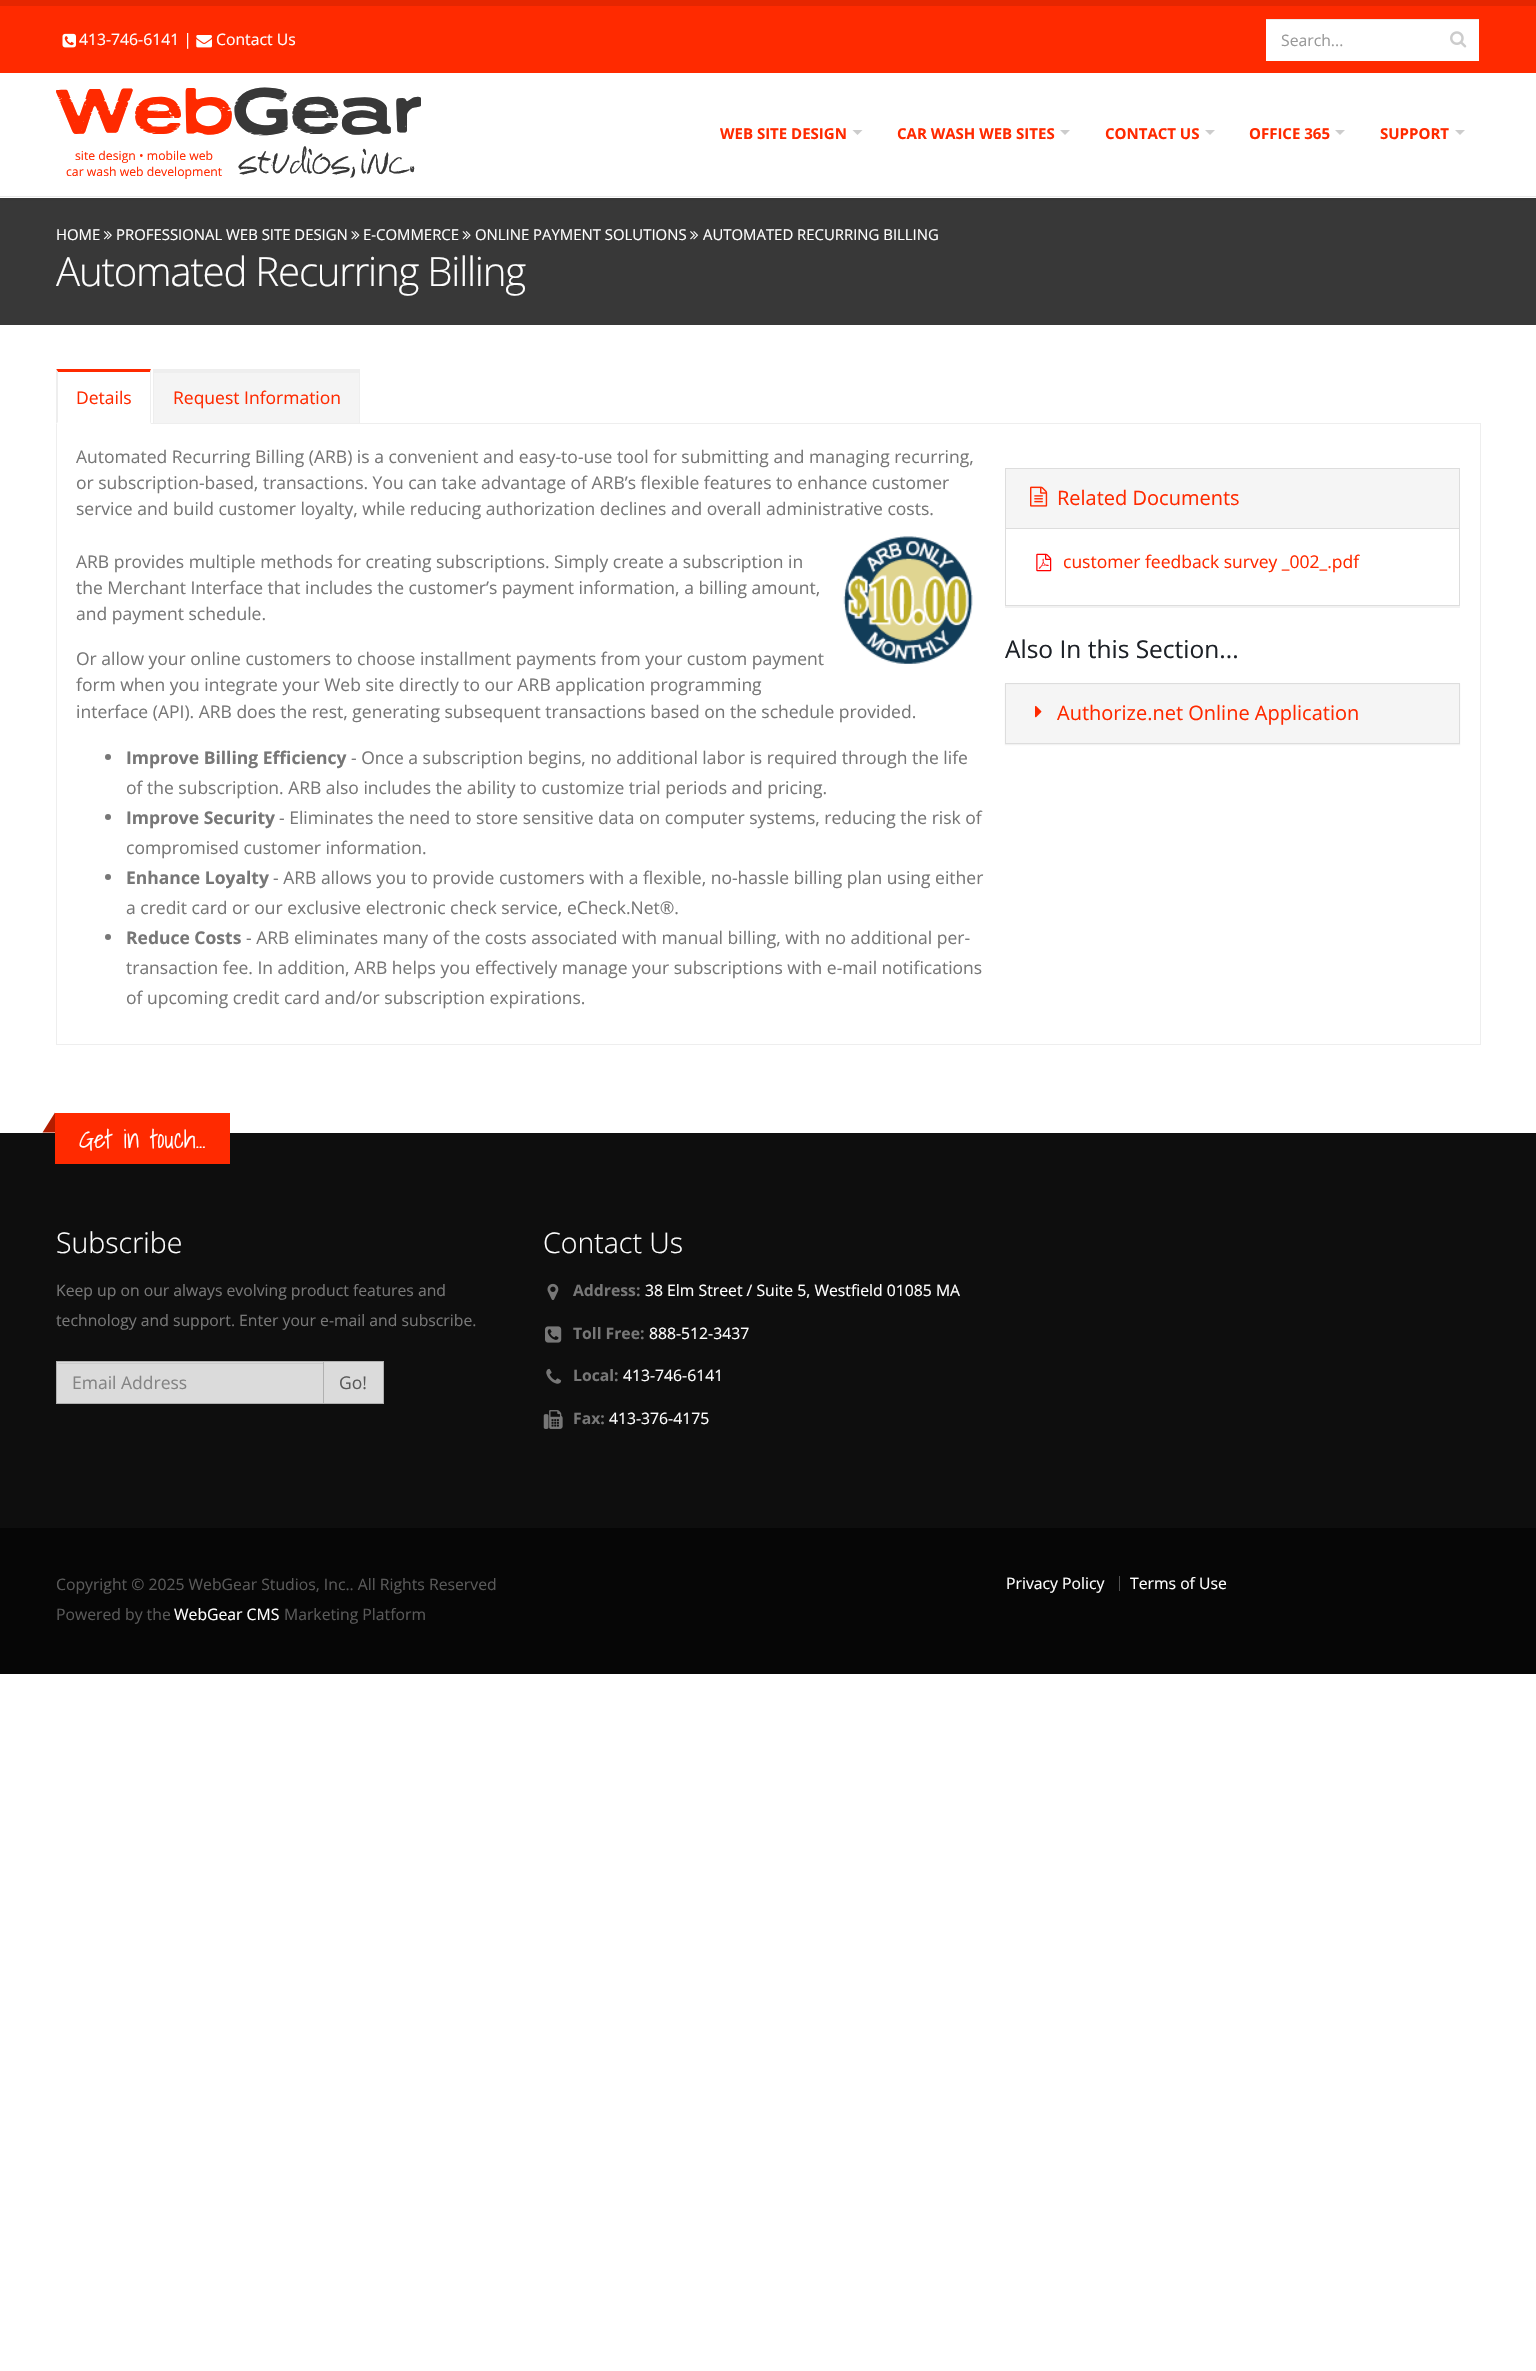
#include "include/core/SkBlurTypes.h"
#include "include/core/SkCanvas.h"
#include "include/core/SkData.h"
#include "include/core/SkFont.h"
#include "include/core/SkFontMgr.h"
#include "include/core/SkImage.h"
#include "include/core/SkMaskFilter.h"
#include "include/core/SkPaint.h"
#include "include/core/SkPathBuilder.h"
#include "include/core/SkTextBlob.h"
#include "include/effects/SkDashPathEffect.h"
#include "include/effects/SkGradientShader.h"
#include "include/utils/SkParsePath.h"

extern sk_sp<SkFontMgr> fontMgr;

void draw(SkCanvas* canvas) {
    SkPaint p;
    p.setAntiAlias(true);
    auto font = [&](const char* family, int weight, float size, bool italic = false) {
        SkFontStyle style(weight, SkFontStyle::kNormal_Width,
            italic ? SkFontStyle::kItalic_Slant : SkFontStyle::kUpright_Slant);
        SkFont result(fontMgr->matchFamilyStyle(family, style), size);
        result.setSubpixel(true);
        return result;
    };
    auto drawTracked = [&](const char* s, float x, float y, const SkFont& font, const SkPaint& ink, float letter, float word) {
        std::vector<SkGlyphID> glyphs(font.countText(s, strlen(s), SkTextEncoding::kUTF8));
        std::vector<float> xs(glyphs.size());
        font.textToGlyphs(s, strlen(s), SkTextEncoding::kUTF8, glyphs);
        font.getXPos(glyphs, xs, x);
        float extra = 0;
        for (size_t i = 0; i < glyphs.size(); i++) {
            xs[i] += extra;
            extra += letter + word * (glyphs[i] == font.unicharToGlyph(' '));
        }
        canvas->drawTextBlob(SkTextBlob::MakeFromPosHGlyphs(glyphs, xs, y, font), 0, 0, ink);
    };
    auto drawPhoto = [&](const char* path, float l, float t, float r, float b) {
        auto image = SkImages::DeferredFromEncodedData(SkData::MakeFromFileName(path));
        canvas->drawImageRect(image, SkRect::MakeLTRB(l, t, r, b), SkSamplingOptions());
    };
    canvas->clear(0xFFFFFFFF);
    p.setColor(0xFF383838);
    canvas->drawRect(SkRect::MakeLTRB(0, 198, 1536, 325), p);
    p.setColor(0x1A000000);
    p.setMaskFilter(SkMaskFilter::MakeBlur(kNormal_SkBlurStyle, 2));
    canvas->drawRect(SkRect::MakeLTRB(0, 0, 1536, 198), p);
    p.setMaskFilter(nullptr);
    {
        const struct { float l, t, r, b; SkColor color; } items[] = {
            {0, 73, 1536, 198, 0xFFFFFFFF},
            {0, 196, 1536, 197, 0xFFE9E9E9},
            {0, 6, 1536, 73, 0xFFFF2A00},
            {0, 0, 1536, 6, 0xFFE62600},
        };
        for (auto [l, t, r, b, color] : items) {
            p.setColor(color);
            canvas->drawRect(SkRect::MakeLTRB(l, t, r, b), p);
        }
    }
    drawPhoto("media/1.png", 62, 33, 76, 48);
    auto font1 = font("Open Sans", 400, 15.75f);
    p.setColor(0xFFFFFFFF);
    canvas->drawString("413-746-6141 |", 79, 45, font1, p);
    drawPhoto("media/2.png", 196, 35, 212, 48);
    canvas->drawString("Contact Us", 216, 45, font1, p);
    canvas->drawRect(SkRect::MakeLTRB(1266, 20, 1479, 61), p);
    p.setColor(0xFFECECEC);
    canvas->drawRect(SkRect::MakeLTRB(1266, 19, 1479, 20), p);
    p.setColor(0xFF999999);
    canvas->drawString("Search...", 1281, 46, font1, p);
    drawPhoto("media/3.png", 1450, 31, 1467, 48);
    auto font2 = font("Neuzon", 400, 65);
    p.setColor(0xFFFF2A00);
    canvas->drawString("Web", 56, 133, font2, p);
    p.setColor(0xFF383838);
    canvas->drawString("Gear", 232, 133, font2, p);
    auto font3 = font("Open Sans", 400, 12.25f);
    p.setColor(0xFFFF2A00);
    canvas->drawString("site design • mobile web", 75, 160, font3, p);
    canvas->drawString("car wash web development", 66, 176, font3, p);
    auto font4 = font("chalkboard", 700, 15.75f);
    p.setColor(0xFF383838);
    canvas->drawString("studios", 238, 168, font4, p);
    auto font5 = font("chalkboard", 700, 13);
    canvas->drawString(",", 350, 173, font5, p);
    canvas->drawString("inc.", 361, 168, font4, p);
    auto font6 = font("Open Sans", 700, 15);
    p.setColor(0xFFFF2A00);
    canvas->drawString("WEB SITE DESIGN", 720, 139, font6, p);
    p.setColor(0xFFCCCCCC);
    canvas->drawPath(SkPathBuilder().moveTo(852.5f, 130).lineTo(862.5f, 130).lineTo(857.5f, 135).close().detach(), p);
    p.setColor(0xFFFF2A00);
    canvas->drawString("CAR WASH WEB SITES", 897, 139, font6, p);
    p.setColor(0xFFCCCCCC);
    canvas->drawPath(SkPathBuilder().moveTo(1060, 130).lineTo(1070, 130).lineTo(1065, 135).close().detach(), p);
    p.setColor(0xFFFF2A00);
    canvas->drawString("CONTACT US", 1105, 139, font6, p);
    p.setColor(0xFFCCCCCC);
    canvas->drawPath(SkPathBuilder().moveTo(1205, 130).lineTo(1215, 130).lineTo(1210, 135).close().detach(), p);
    p.setColor(0xFFFF2A00);
    canvas->drawString("OFFICE 365", 1249, 139, font6, p);
    p.setColor(0xFFCCCCCC);
    canvas->drawPath(SkPathBuilder().moveTo(1335, 130).lineTo(1345, 130).lineTo(1340, 135).close().detach(), p);
    p.setColor(0xFFFF2A00);
    canvas->drawString("SUPPORT", 1380, 139, font6, p);
    p.setColor(0xFFCCCCCC);
    canvas->drawPath(SkPathBuilder().moveTo(1455, 130).lineTo(1465, 130).lineTo(1460, 135).close().detach(), p);
    auto font7 = font("Open Sans", 400, 14.9f);
    p.setColor(0xFFFFFFFF);
    canvas->drawString("HOME", 56, 240, font7, p);
    drawPhoto("media/4.png", 103, 231, 112, 240);
    canvas->drawString("PROFESSIONAL WEB SITE DESIGN", 116, 240, font7, p);
    drawPhoto("media/5.png", 351, 231, 360, 240);
    canvas->drawString("E-COMMERCE", 363, 240, font7, p);
    drawPhoto("media/6.png", 462, 231, 471, 240);
    canvas->drawString("ONLINE PAYMENT SOLUTIONS", 475, 240, font7, p);
    drawPhoto("media/7.png", 690, 231, 699, 240);
    canvas->drawString("AUTOMATED RECURRING BILLING", 703, 240, font7, p);
    auto font8 = font("Open Sans", 300, 40.25f);
    drawTracked("Automated Recurring Billing", 56, 286, font8, p, -1.25f, 0);
    p.setColor(0xFFEEEEEE);
    canvas->drawRect(SkRect::MakeLTRB(151, 423, 1481, 424), p);
    p.setColor(0xFFFF2A00);
    canvas->drawPath(SkPathBuilder().moveTo(56, 369).lineTo(151, 369).lineTo(150, 372).lineTo(58, 372).close().detach(), p);
    p.setColor(0xFFEEEEEE);
    canvas->drawPath(SkPathBuilder().moveTo(151, 369).lineTo(151, 424).lineTo(150, 422).lineTo(150, 372).close().detach(), p);
    canvas->drawPath(SkPathBuilder().moveTo(56, 424).lineTo(56, 369).lineTo(58, 372).lineTo(58, 422).close().detach(), p);
    auto font9 = font("Open Sans", 400, 17.5f);
    p.setColor(0xFFFF2A00);
    canvas->drawString("Details", 76, 404, font9, p);
    {
        const struct { float l, t, r, b; SkColor color; } items[] = {
            {154, 373, 359, 423, 0xFFF4F4F4},
            {153, 369, 360, 373, 0xFFEEEEEE},
            {359, 369, 360, 423, 0xFFEEEEEE},
            {153, 369, 154, 423, 0xFFEEEEEE},
        };
        for (auto [l, t, r, b, color] : items) {
            p.setColor(color);
            canvas->drawRect(SkRect::MakeLTRB(l, t, r, b), p);
        }
    }
    p.setColor(0xFFFF2A00);
    canvas->drawString("Request Information", 173, 404, font9, p);
    {
        const struct { float l, t, r, b; SkColor color; } items[] = {
            {1480, 424, 1481, 1045, 0xFFEEEEEE},
            {56, 1044, 1481, 1045, 0xFFEEEEEE},
            {56, 424, 57, 1045, 0xFFEEEEEE},
        };
        for (auto [l, t, r, b, color] : items) {
            p.setColor(color);
            canvas->drawRect(SkRect::MakeLTRB(l, t, r, b), p);
        }
    }
    p.setColor(0xFF777777);
    {
        const struct { const char* s; float x, y; } items[] = {
            {"Automated Recurring Billing (ARB) is a convenient and easy-to-use tool for submitting and managing recurring,", 76, 463},
            {"or subscription-based, transactions. You can take advantage of ARB’s flexible features to enhance customer", 76, 489},
            {"service and build customer loyalty, while reducing authorization declines and overall administrative costs.", 76, 515},
            {"ARB provides multiple methods for creating subscriptions. Simply create a subscription in", 76, 568},
        };
        for (auto [s, x, y] : items) {
            canvas->drawString(s, x, y, font9, p);
        }
    }
    drawPhoto("media/8.png", 843, 536, 973, 664);
    {
        const struct { const char* s; float x, y; } items[] = {
            {"the Merchant Interface that includes the customer’s payment information, a billing amount,", 76, 594},
            {"and payment schedule.", 76, 620},
            {"Or allow your online customers to choose installment payments from your custom payment", 76, 665},
            {"form when you integrate your Web site directly to our ARB application programming", 76, 691},
            {"interface (API). ARB does the rest, generating subsequent transactions based on the schedule provided.", 76, 718},
        };
        for (auto [s, x, y] : items) {
            canvas->drawString(s, x, y, font9, p);
        }
    }
    canvas->drawCircle(108, 757, 3, p);
    auto font10 = font("Open Sans", 700, 17.5f);
    canvas->drawString("Improve Billing Efficiency", 126, 764, font10, p);
    canvas->drawString("- Once a subscription begins, no additional labor is required through the life", 351, 764, font9, p);
    canvas->drawString("of the subscription. ARB also includes the ability to customize trial periods and pricing.", 126, 794, font9, p);
    canvas->drawCircle(108, 817, 3, p);
    canvas->drawString("Improve Security", 126, 824, font10, p);
    canvas->drawString("- Eliminates the need to store sensitive data on computer systems, reducing the risk of", 279, 824, font9, p);
    canvas->drawString("compromised customer information.", 126, 854, font9, p);
    canvas->drawCircle(108, 877, 3, p);
    canvas->drawString("Enhance Loyalty", 126, 884, font10, p);
    canvas->drawString("- ARB allows you to provide customers with a flexible, no-hassle billing plan using either", 273, 884, font9, p);
    canvas->drawString("a credit card or our exclusive electronic check service, eCheck.Net®.", 126, 914, font9, p);
    canvas->drawCircle(108, 937, 3, p);
    canvas->drawString("Reduce Costs", 126, 944, font10, p);
    {
        const struct { const char* s; float x, y; } items[] = {
            {"- ARB eliminates many of the costs associated with manual billing, with no additional per-", 246, 944},
            {"transaction fee. In addition, ARB helps you effectively manage your subscriptions with e-mail notifications", 126, 974},
            {"of upcoming credit card and/or subscription expirations.", 126, 1004},
        };
        for (auto [s, x, y] : items) {
            canvas->drawString(s, x, y, font9, p);
        }
    }
    canvas->save();
    canvas->clipRect(SkRect::MakeLTRB(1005, 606, 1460, 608));
    p.setColor(0x0D000000);
    p.setMaskFilter(SkMaskFilter::MakeBlur(kNormal_SkBlurStyle, 0.5f));
    canvas->drawRect(SkRect::MakeLTRB(1005, 469, 1460, 608), p);
    p.setMaskFilter(nullptr);
    canvas->restore();
    p.setStyle(SkPaint::kStroke_Style);
    p.setStrokeWidth(1);
    p.setColor(0xFFDDDDDD);
    canvas->drawRect(SkRect::MakeLTRB(1005.5f, 468.5f, 1459.5f, 605.5f), p);
    p.setStyle(SkPaint::kFill_Style);
    p.setColor(0xFFF5F5F5);
    canvas->drawRect(SkRect::MakeLTRB(1006, 469, 1459, 528), p);
    drawPhoto("media/9.png", 1030, 486, 1048, 507);
    auto font11 = font("Open Sans", 400, 20);
    p.setColor(0xFFFF2A00);
    canvas->drawString("Related Documents", 1057, 505, font11, p);
    p.setColor(0xFFDDDDDD);
    canvas->drawRect(SkRect::MakeLTRB(1006, 528, 1459, 529), p);
    drawPhoto("media/10.png", 1036, 553, 1052, 572);
    p.setColor(0xFFFF2A00);
    canvas->drawString("customer feedback survey _002_.pdf", 1063, 568, font9, p);
    auto font12 = font("Open Sans", 400, 24.5f);
    p.setColor(0xFF1D2127);
    canvas->drawString("Also In this Section...", 1005, 658, font12, p);
    p.setColor(0x0D000000);
    p.setMaskFilter(SkMaskFilter::MakeBlur(kNormal_SkBlurStyle, 0.5f));
    canvas->drawRect(SkRect::MakeLTRB(1005, 684, 1460, 745), p);
    p.setMaskFilter(nullptr);
    p.setStyle(SkPaint::kStroke_Style);
    p.setColor(0xFFDDDDDD);
    canvas->drawRect(SkRect::MakeLTRB(1005.5f, 683.5f, 1459.5f, 743.5f), p);
    p.setStyle(SkPaint::kFill_Style);
    p.setColor(0xFFF5F5F5);
    canvas->drawRect(SkRect::MakeLTRB(1006, 685, 1459, 743), p);
    drawPhoto("media/11.png", 1035, 705, 1042, 718);
    p.setColor(0xFFFF2A00);
    canvas->drawString("Authorize.net Online Application", 1057, 720, font11, p);
    p.setColor(0xFF0E0E0E);
    canvas->drawRect(SkRect::MakeLTRB(0, 1133, 1536, 1528), p);
    p.setColor(0xFFFF2A00);
    canvas->drawRect(SkRect::MakeLTRB(55, 1113, 230, 1164), p);
    p.setColor(0xFFB31D00);
    canvas->drawPath(SkPathBuilder().moveTo(55, 1112.5f).lineTo(55, 1132.5f).lineTo(42.5f, 1132.5f).close().detach(), p);
    auto font13 = font("Shadows Into Light", 300, 25.25f);
    p.setColor(0xFFFFFFFF);
    canvas->drawString("Get in touch...", 79, 1148, font13, p);
    auto font14 = font("Open Sans", 300, 28.5f);
    canvas->drawString("Subscribe", 56, 1253, font14, p);
    p.setColor(0xFF777777);
    canvas->drawString("Keep up on our always evolving product features and", 56, 1296, font1, p);
    canvas->drawString("technology and support. Enter your e-mail and subscribe.", 56, 1326, font1, p);
    p.setColor(0xFFDBDBDB);
    canvas->drawRect(SkRect::MakeLTRB(57, 1362, 323, 1403), p);
    p.setColor(0xFFCBCBCB);
    canvas->drawRect(SkRect::MakeLTRB(58, 1363, 323, 1364), p);
    p.setStyle(SkPaint::kStroke_Style);
    p.setColor(0xFFB0B0B0);
    canvas->drawRect(SkRect::MakeLTRB(56.5f, 1361.5f, 323.5f, 1403.5f), p);
    p.setStyle(SkPaint::kFill_Style);
    p.setColor(0xFF848484);
    canvas->drawString("Email Address", 72, 1389, font9, p);
    p.setColor(0xFFDBDBDB);
    canvas->drawRect(SkRect::MakeLTRB(323.5f, 1361.5f, 383.5f, 1403.5f), p);
    p.setStyle(SkPaint::kStroke_Style);
    p.setColor(0xFFB0B0B0);
    canvas->drawRect(SkRect::MakeLTRB(323.5f, 1361.5f, 383.5f, 1403.5f), p);
    p.setStyle(SkPaint::kFill_Style);
    p.setColor(0xFF595959);
    canvas->drawString("Go!", 339, 1389, font9, p);
    p.setColor(0xFFFFFFFF);
    canvas->drawString("Contact Us", 543, 1253, font14, p);
    drawPhoto("media/12.png", 547, 1283, 559, 1300);
    auto font15 = font("Open Sans", 700, 15.75f);
    p.setColor(0xFF777777);
    canvas->drawString("Address:", 573, 1296, font15, p);
    p.setColor(0xFFFFFFFF);
    canvas->drawString("38 Elm Street / Suite 5, Westfield 01085 MA", 645, 1296, font1, p);
    drawPhoto("media/13.png", 545, 1326, 562, 1343);
    p.setColor(0xFF777777);
    canvas->drawString("Toll Free:", 573, 1339, font15, p);
    p.setColor(0xFFFFFFFF);
    canvas->drawString("888-512-3437", 649, 1339, font1, p);
    drawPhoto("media/14.png", 546, 1368, 562, 1384);
    p.setColor(0xFF777777);
    canvas->drawString("Local:", 573, 1381, font15, p);
    p.setColor(0xFFFFFFFF);
    canvas->drawString("413-746-6141", 623, 1381, font1, p);
    drawPhoto("media/15.png", 543, 1410, 563, 1429);
    p.setColor(0xFF777777);
    canvas->drawString("Fax:", 573, 1424, font15, p);
    p.setColor(0xFFFFFFFF);
    canvas->drawString("413-376-4175", 609, 1424, font1, p);
    p.setColor(0xFF060606);
    canvas->drawRect(SkRect::MakeLTRB(0, 1528, 1536, 1674), p);
    p.setColor(0xFF595959);
    canvas->drawString("Copyright © 2025 WebGear Studios, Inc.. All Rights Reserved", 56, 1590, font1, p);
    canvas->drawString("Powered by the", 56, 1620, font1, p);
    p.setColor(0xFFFFFFFF);
    canvas->drawString("WebGear CMS", 174, 1620, font1, p);
    p.setColor(0xFF595959);
    canvas->drawString("Marketing Platform", 284, 1620, font1, p);
    p.setColor(0xFFFFFFFF);
    canvas->drawString("Privacy Policy", 1006, 1589, font1, p);
    p.setColor(0xFF505050);
    canvas->drawRect(SkRect::MakeLTRB(1119, 1576, 1120, 1591), p);
    p.setColor(0xFFFFFFFF);
    canvas->drawString("Terms of Use", 1130, 1589, font1, p);
}
